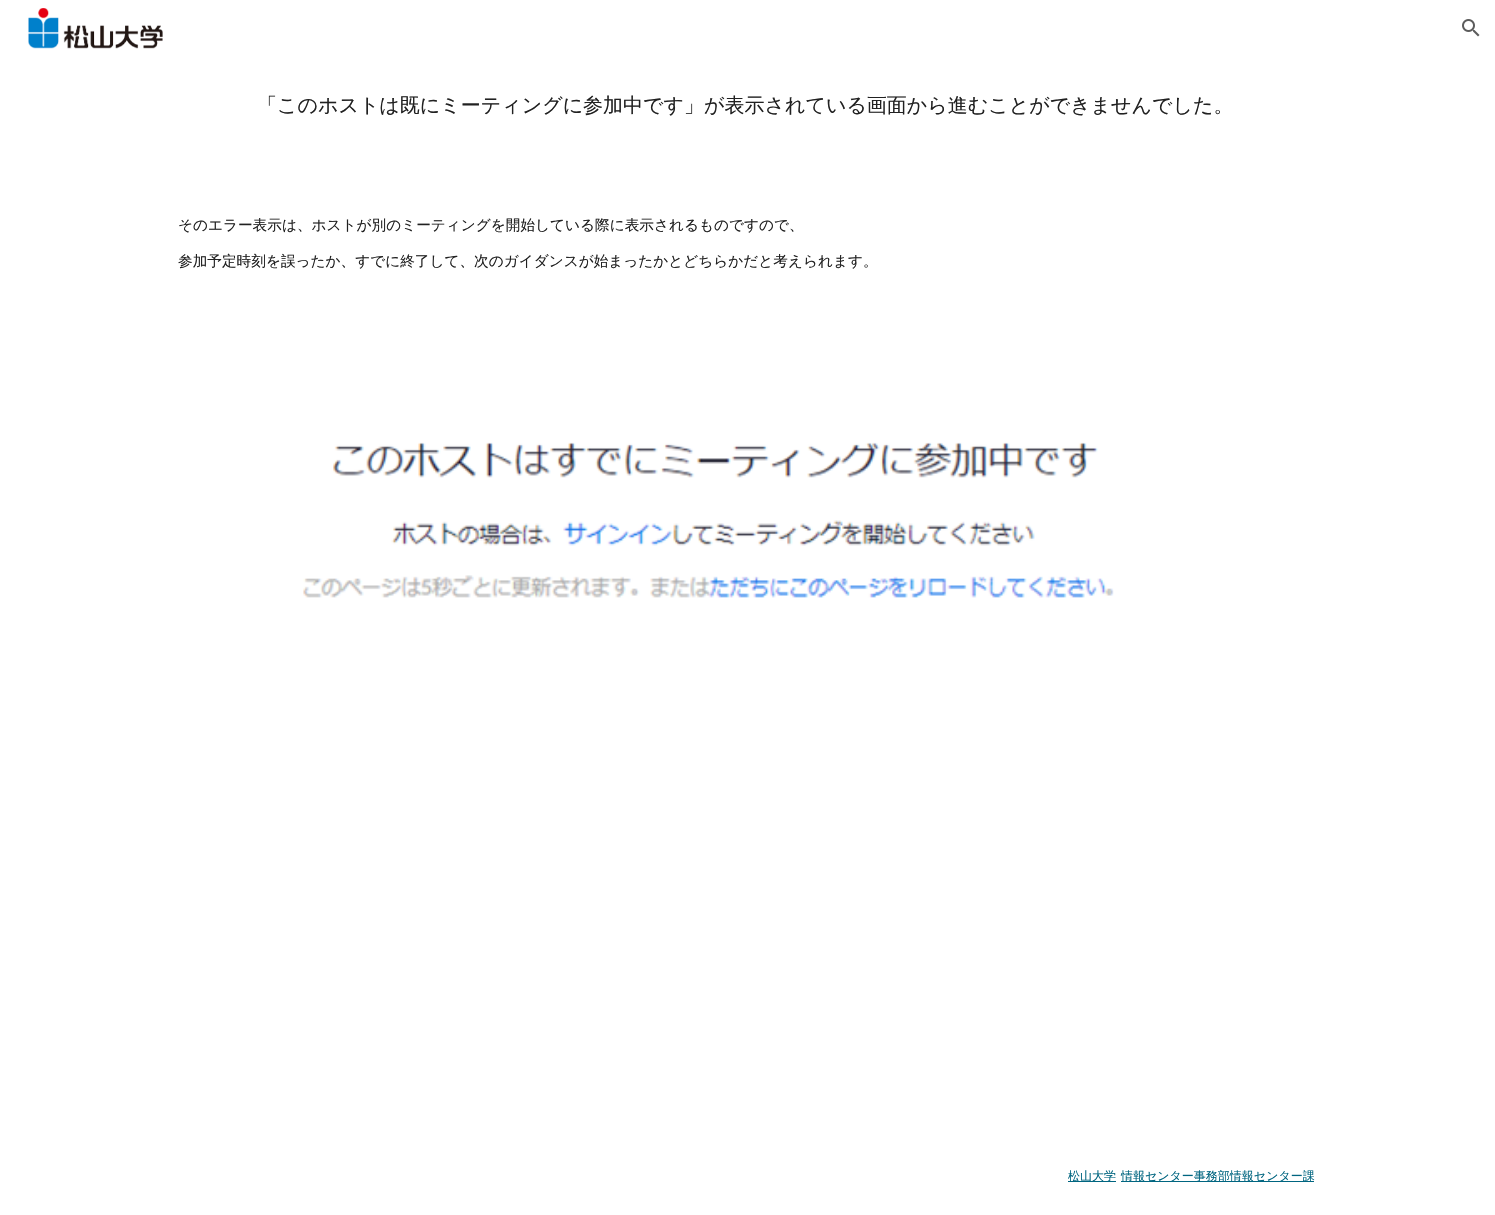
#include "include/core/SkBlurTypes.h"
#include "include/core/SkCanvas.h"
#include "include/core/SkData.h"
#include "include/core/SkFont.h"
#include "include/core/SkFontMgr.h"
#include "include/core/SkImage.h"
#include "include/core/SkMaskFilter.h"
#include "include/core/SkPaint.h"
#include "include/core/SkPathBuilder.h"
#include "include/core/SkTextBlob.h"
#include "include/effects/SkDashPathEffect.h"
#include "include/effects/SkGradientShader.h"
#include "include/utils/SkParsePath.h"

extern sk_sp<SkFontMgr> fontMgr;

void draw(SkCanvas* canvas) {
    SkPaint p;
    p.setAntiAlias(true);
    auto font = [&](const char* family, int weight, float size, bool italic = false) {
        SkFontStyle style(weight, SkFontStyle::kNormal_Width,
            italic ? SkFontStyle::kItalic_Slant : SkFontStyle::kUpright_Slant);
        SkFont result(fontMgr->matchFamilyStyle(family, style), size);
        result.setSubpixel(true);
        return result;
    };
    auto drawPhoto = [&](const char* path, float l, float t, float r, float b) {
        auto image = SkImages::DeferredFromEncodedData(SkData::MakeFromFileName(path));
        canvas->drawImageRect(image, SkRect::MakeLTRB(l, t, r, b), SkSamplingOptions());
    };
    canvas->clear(0xFFFFFFFF);
    drawPhoto("media/1.png", 28, 8, 163, 49);
    drawPhoto("media/2.png", 1462, 19, 1480, 37);
    auto font1 = font("WenQuanYi Zen Hei", 500, 20);
    p.setColor(0xFF212121);
    canvas->drawString("「このホストは既にミーティングに参加中です」が表示されている画面から進むことができませんでした。", 257, 112, font1, p);
    auto font2 = font("WenQuanYi Zen Hei", 500, 14.65f);
    canvas->drawString("そのエラー表示は、ホストが別のミーティングを開始している際に表示されるものですので、", 178, 230, font2, p);
    canvas->drawString("参加予定時刻を誤ったか、すでに終了して、次のガイダンスが始まったかとどちらかだと考えられます。", 178, 266, font2, p);
    drawPhoto("media/3.png", 303, 442, 1114, 598);
    p.setColor(0xFF006580);
    canvas->drawRect(SkRect::MakeLTRB(1068, 1181, 1116, 1182), p);
    auto font3 = font("WenQuanYi Zen Hei", 500, 12);
    canvas->drawString("松山大学", 1068, 1180, font3, p);
    canvas->drawRect(SkRect::MakeLTRB(1121, 1181, 1314, 1182), p);
    canvas->drawString("情報センター事務部情報センター課", 1121, 1180, font3, p);
}
